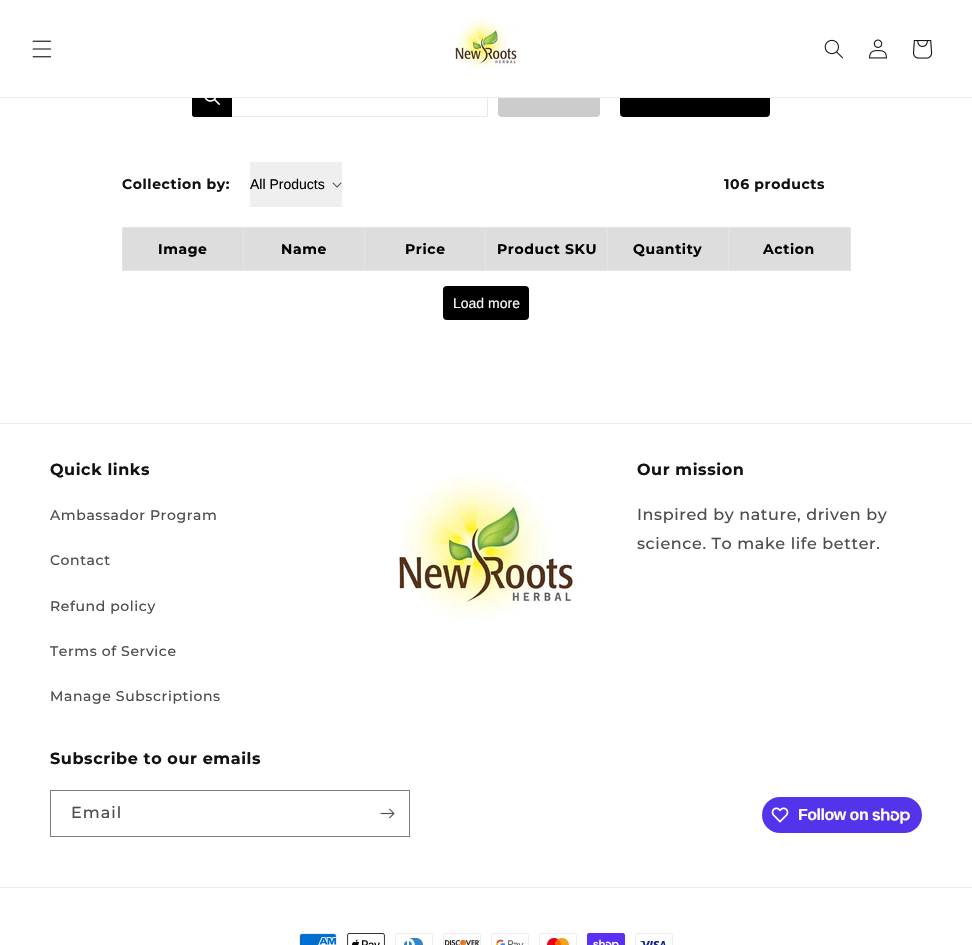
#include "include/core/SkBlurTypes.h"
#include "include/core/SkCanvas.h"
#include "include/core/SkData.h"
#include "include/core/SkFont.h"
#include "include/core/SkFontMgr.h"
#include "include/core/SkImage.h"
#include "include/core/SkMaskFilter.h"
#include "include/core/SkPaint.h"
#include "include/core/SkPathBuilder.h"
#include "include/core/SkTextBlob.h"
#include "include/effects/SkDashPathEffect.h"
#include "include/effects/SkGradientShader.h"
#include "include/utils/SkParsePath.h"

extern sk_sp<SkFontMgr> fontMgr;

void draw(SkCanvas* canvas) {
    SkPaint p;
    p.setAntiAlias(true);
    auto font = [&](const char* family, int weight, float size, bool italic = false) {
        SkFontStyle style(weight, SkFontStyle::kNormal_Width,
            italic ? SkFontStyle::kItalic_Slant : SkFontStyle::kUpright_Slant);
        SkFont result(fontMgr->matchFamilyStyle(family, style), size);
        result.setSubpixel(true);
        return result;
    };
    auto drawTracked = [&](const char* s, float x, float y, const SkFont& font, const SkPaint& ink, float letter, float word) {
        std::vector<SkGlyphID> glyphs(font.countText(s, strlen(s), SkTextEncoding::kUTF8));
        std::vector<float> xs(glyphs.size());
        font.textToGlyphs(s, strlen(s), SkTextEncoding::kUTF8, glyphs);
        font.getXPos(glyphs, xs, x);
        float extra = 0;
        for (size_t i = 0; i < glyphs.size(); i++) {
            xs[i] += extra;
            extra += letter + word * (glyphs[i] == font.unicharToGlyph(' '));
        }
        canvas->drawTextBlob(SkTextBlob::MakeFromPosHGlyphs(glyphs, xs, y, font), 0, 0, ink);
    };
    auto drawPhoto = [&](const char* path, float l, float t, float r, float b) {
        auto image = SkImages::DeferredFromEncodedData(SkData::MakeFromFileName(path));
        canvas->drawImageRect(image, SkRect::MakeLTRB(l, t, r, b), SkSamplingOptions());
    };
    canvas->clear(0xFFFFFFFF);
    p.setStyle(SkPaint::kStroke_Style);
    p.setStrokeWidth(1);
    p.setColor(0xFFE8E8E8);
    canvas->drawRoundRect(SkRect::MakeLTRB(192.5f, 77.5f, 487.5f, 116.5f), 1.5f, 1.5f, p);
    p.setStyle(SkPaint::kFill_Style);
    p.setColor(0xFF000000);
    canvas->drawPath(SkPathBuilder().moveTo(194.5f, 77).lineTo(232, 77).lineTo(232, 117).lineTo(194.5f, 117).cubicTo(193, 117, 192, 116, 192, 114.5f).lineTo(192, 79.5f).cubicTo(192, 78, 193, 77, 194.5f, 77).close().detach(), p);
    p.setColor(0xFFCCCCCC);
    canvas->drawRoundRect(SkRect::MakeLTRB(498, 77, 600, 117), 4, 4, p);
    p.setColor(0xFF000000);
    canvas->drawRoundRect(SkRect::MakeLTRB(620, 77, 770, 117), 4, 4, p);
    p.setColor(0xFFFFFFFF);
    canvas->drawRect(SkRect::MakeLTRB(192, 77, 770, 97), p);
    p.setColor(0xFFECECEC);
    canvas->drawRect(SkRect::MakeLTRB(0, 97, 972, 98), p);
    drawPhoto("media/1.png", 32, 40, 52, 58);
    drawPhoto("media/2.png", 455, 18, 519, 70);
    drawPhoto("media/3.png", 824, 39, 843, 59);
    drawPhoto("media/4.png", 869, 39, 887, 59);
    drawPhoto("media/5.png", 913, 40, 933, 59);
    drawPhoto("media/6.png", 204, 98, 220, 105);
    auto font1 = font("Montserrat", 700, 14);
    p.setColor(0xFF121212);
    drawTracked("Collection by:", 122, 189, font1, p, 0.6f, 0);
    p.setColor(0xFFEFEFEF);
    canvas->drawRect(SkRect::MakeLTRB(250, 162, 342, 207), p);
    auto font2 = font("Liberation Sans", 400, 14);
    p.setColor(0xFF000000);
    canvas->drawString("All Products", 250, 189, font2, p);
    drawPhoto("media/7.png", 332, 182, 342, 188);
    p.setColor(0xFF121212);
    drawTracked("106 products", 724, 189, font1, p, 0.6f, 0);
    {
        const struct { float l, t, r, b; SkColor color; } items[] = {
            {122, 227, 851, 228, 0xFFE4E4E4},
            {850, 227, 851, 271, 0xFFE4E4E4},
            {122, 270, 851, 271, 0xFFE4E4E4},
            {122, 227, 123, 271, 0xFFE4E4E4},
            {123, 228, 850, 270, 0xFFDDDDDD},
        };
        for (auto [l, t, r, b, color] : items) {
            p.setColor(color);
            canvas->drawRect(SkRect::MakeLTRB(l, t, r, b), p);
        }
    }
    p.setColor(0xFF000000);
    drawTracked("Image", 158, 254, font1, p, 0.6f, 0);
    p.setColor(0xFFE4E4E4);
    canvas->drawRect(SkRect::MakeLTRB(243, 227, 244, 271), p);
    p.setColor(0xFF000000);
    drawTracked("Name", 281, 254, font1, p, 0.6f, 0);
    p.setColor(0xFFE4E4E4);
    canvas->drawRect(SkRect::MakeLTRB(364, 227, 365, 271), p);
    p.setColor(0xFF000000);
    drawTracked("Price", 405, 254, font1, p, 0.6f, 0);
    p.setColor(0xFFE4E4E4);
    canvas->drawRect(SkRect::MakeLTRB(485, 227, 486, 271), p);
    p.setColor(0xFF000000);
    drawTracked("Product SKU", 497, 254, font1, p, 0.6f, 0);
    p.setColor(0xFFE4E4E4);
    canvas->drawRect(SkRect::MakeLTRB(607, 227, 608, 271), p);
    p.setColor(0xFF000000);
    drawTracked("Quantity", 633, 254, font1, p, 0.6f, 0);
    p.setColor(0xFFE4E4E4);
    canvas->drawRect(SkRect::MakeLTRB(728, 227, 729, 271), p);
    p.setColor(0xFF000000);
    drawTracked("Action", 763, 254, font1, p, 0.6f, 0);
    canvas->drawRoundRect(SkRect::MakeLTRB(443, 286, 529, 320), 4, 4, p);
    p.setColor(0xFFFFFFFF);
    canvas->drawString("Load more", 453, 308, font2, p);
    p.setColor(0xFFECECEC);
    canvas->drawRect(SkRect::MakeLTRB(0, 423, 972, 424), p);
    auto font3 = font("Montserrat", 700, 16);
    p.setColor(0xFF121212);
    drawTracked("Quick links", 50, 475, font3, p, 0.6f, 0);
    auto font4 = font("Montserrat", 500, 14);
    p.setColor(0xFF4D4D4D);
    {
        const struct { const char* s; float x, y; } items[] = {
            {"Ambassador Program", 50, 520},
            {"Contact", 50, 565},
            {"Refund policy", 50, 611},
            {"Terms of Service", 50, 656},
            {"Manage Subscriptions", 50, 701},
        };
        for (auto [s, x, y] : items) {
            drawTracked(s, x, y, font4, p, 0.6f, 0);
        }
    }
    drawPhoto("media/8.png", 399, 472, 578, 620);
    p.setColor(0xFF121212);
    drawTracked("Our mission", 637, 475, font3, p, 0.6f, 0);
    auto font5 = font("Montserrat", 500, 16);
    p.setColor(0xFF4D4D4D);
    drawTracked("Inspired by nature, driven by", 637, 520, font5, p, 0.6f, 0);
    drawTracked("science. To make life better.", 637, 549, font5, p, 0.6f, 0);
    p.setColor(0xFF121212);
    drawTracked("Subscribe to our emails", 50, 764, font3, p, 0.6f, 0);
    p.setStyle(SkPaint::kStroke_Style);
    p.setColor(0xFF7D7D7D);
    canvas->drawRect(SkRect::MakeLTRB(50.5f, 790.5f, 409.5f, 836.5f), p);
    p.setStyle(SkPaint::kFill_Style);
    p.setColor(0xFF4D4D4D);
    drawTracked("Email", 71, 818, font5, p, 1, 0);
    drawPhoto("media/9.png", 380, 808, 395, 819);
    p.setColor(0xFF5433EB);
    canvas->drawRoundRect(SkRect::MakeLTRB(762, 797, 922, 833), 18, 18, p);
    drawPhoto("media/10.png", 771, 807, 789, 823);
    auto font6 = font("Liberation Sans", 700, 16);
    p.setColor(0xFFFFFFFF);
    drawTracked("Follow on", 798, 820, font6, p, -0.5f, 0);
    drawPhoto("media/11.png", 872, 808, 910, 824);
    p.setColor(0xFFECECEC);
    canvas->drawRect(SkRect::MakeLTRB(0, 887, 972, 888), p);
    drawPhoto("media/12.png", 299, 933, 337, 945);
    drawPhoto("media/13.png", 347, 933, 385, 945);
    drawPhoto("media/14.png", 395, 933, 433, 945);
    drawPhoto("media/15.png", 443, 933, 481, 945);
    drawPhoto("media/16.png", 491, 933, 529, 945);
    drawPhoto("media/17.png", 539, 933, 577, 945);
    drawPhoto("media/18.png", 587, 933, 625, 945);
    drawPhoto("media/19.png", 635, 933, 673, 945);
}
